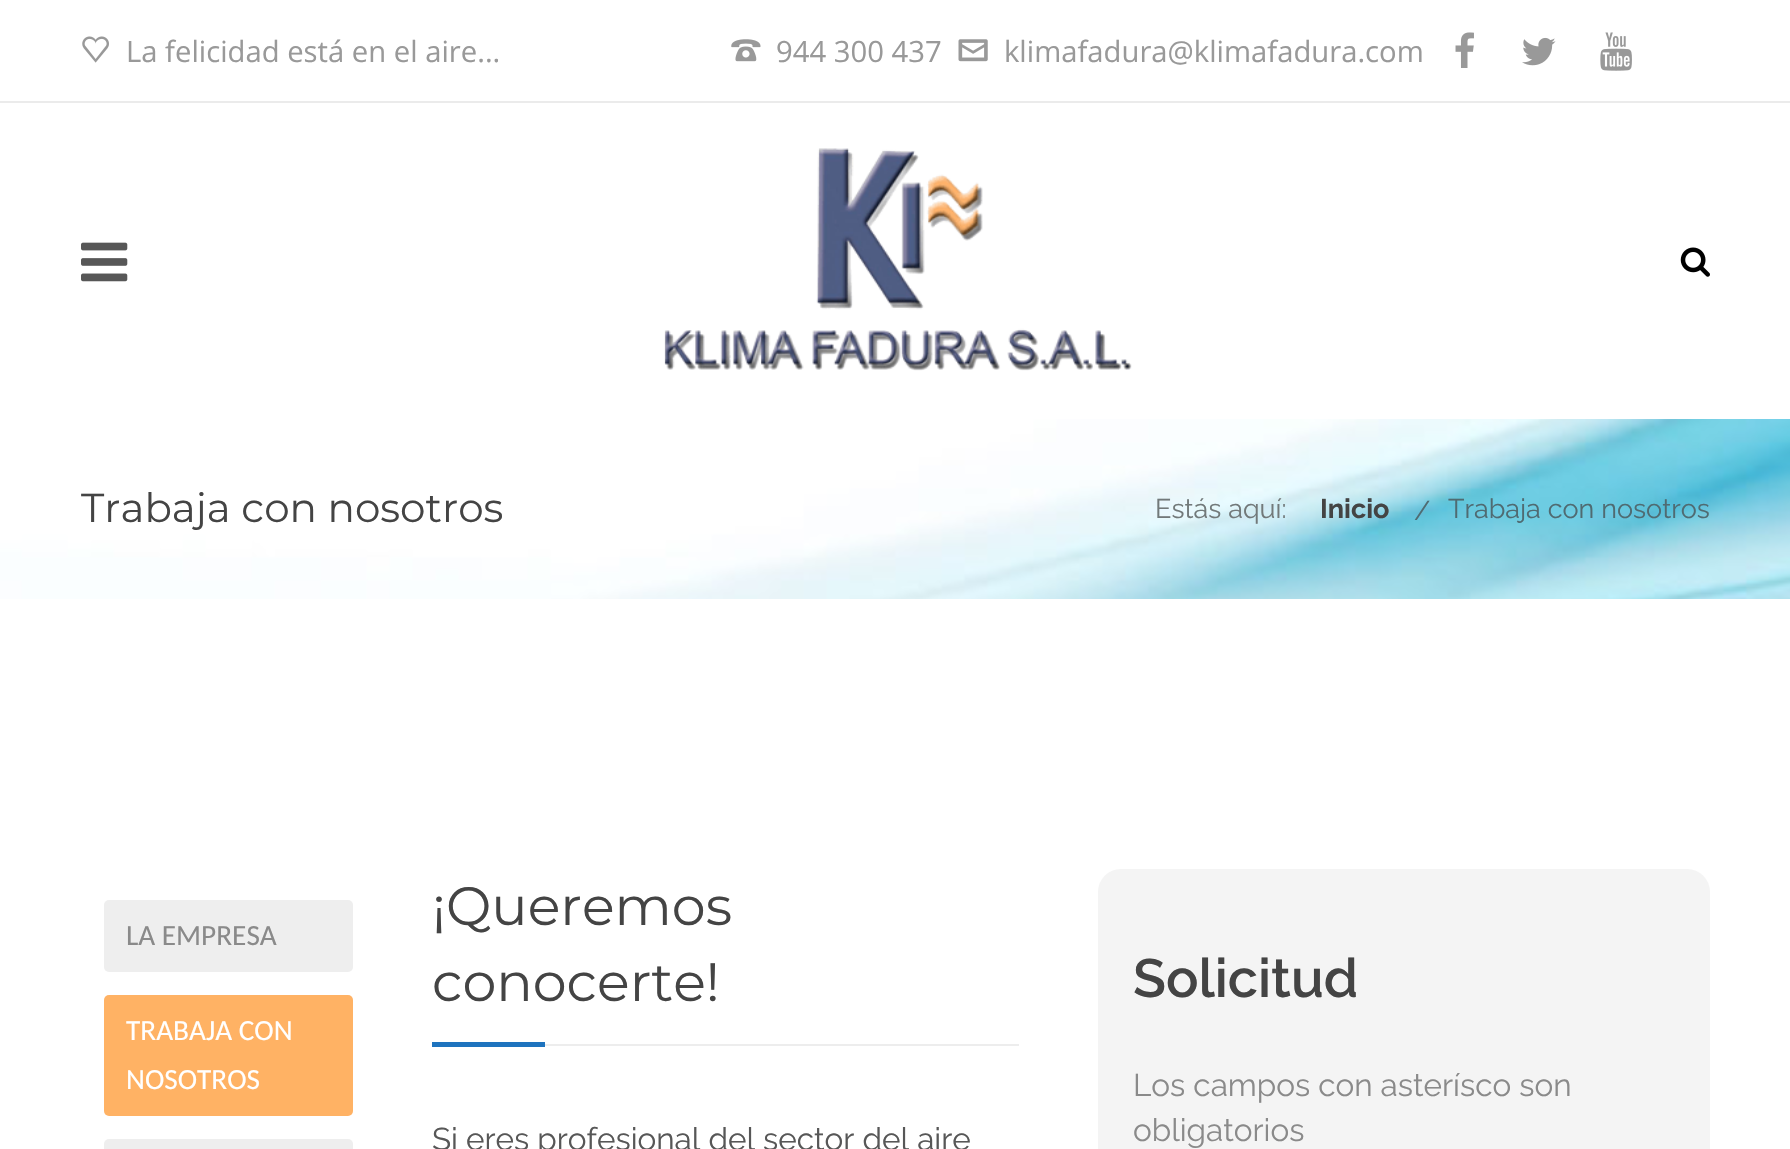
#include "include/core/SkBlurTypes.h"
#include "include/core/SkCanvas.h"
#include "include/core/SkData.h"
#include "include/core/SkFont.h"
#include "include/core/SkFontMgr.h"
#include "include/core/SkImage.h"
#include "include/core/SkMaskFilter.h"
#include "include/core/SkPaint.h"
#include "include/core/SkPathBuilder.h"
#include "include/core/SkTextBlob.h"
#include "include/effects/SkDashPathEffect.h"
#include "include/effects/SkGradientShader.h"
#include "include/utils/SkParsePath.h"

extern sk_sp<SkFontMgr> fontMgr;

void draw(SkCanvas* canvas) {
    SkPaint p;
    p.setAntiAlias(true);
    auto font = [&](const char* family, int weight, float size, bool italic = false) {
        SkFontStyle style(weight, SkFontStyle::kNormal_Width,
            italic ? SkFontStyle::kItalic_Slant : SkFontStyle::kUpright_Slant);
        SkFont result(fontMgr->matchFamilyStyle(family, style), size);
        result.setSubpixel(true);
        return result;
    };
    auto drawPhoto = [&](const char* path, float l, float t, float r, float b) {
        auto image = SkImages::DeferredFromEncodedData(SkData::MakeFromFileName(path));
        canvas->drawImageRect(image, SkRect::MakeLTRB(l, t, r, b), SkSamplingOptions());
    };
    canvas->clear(0xFFFFFFFF);
    p.setColor(0xFFEBEBEB);
    canvas->drawRect(SkRect::MakeLTRB(0, 101, 1790, 103), p);
    drawPhoto("media/1.png", 82, 36, 109, 63);
    auto font1 = font("Open Sans", 400, 29.25f);
    p.setColor(0xFF999999);
    canvas->drawString("La felicidad está en el aire...", 126, 62, font1, p);
    drawPhoto("media/2.png", 731, 39, 761, 62);
    canvas->drawString("944 300 437", 776, 62, font1, p);
    drawPhoto("media/3.png", 958, 39, 988, 62);
    canvas->drawString("klimafadura@klimafadura.com", 1004, 62, font1, p);
    drawPhoto("media/4.png", 1455, 32, 1474, 68);
    drawPhoto("media/5.png", 1522, 37, 1556, 66);
    drawPhoto("media/6.png", 1600, 32, 1632, 71);
    drawPhoto("media/7.png", 81, 242, 128, 282);
    drawPhoto("media/8.png", 664, 148, 1132, 371);
    drawPhoto("media/9.png", 1680, 247, 1710, 277);
    drawPhoto("media/10.png", 0, 419, 1790, 599);
    auto font2 = font("Montserrat", 400, 40.5f);
    p.setColor(0xFF444444);
    canvas->drawString("Trabaja con nosotros", 81, 522, font2, p);
    auto font3 = font("Raleway", 400, 27);
    p.setColor(0xFF72797A);
    canvas->drawString("Estás aquí:", 1155, 518, font3, p);
    auto font4 = font("Raleway", 700, 27);
    p.setColor(0xFF444444);
    canvas->drawString("Inicio", 1320, 518, font4, p);
    p.setColor(0xFF4F6B72);
    canvas->drawString("/", 1414, 520, font3, p);
    canvas->drawString("Trabaja con nosotros", 1448, 518, font3, p);
    p.setColor(0xFFEEEEEE);
    canvas->drawRoundRect(SkRect::MakeLTRB(104, 900, 353, 972), 5, 5, p);
    auto font5 = font("Carlito", 400, 29.25f);
    p.setColor(0xFF8A8A8A);
    canvas->drawString("LA EMPRESA", 126, 945, font5, p);
    p.setColor(0xFFFFB264);
    canvas->drawRoundRect(SkRect::MakeLTRB(104, 995, 353, 1116), 5, 5, p);
    p.setColor(0xFFFFFFFF);
    canvas->drawString("TRABAJA CON", 126, 1040, font5, p);
    canvas->drawString("NOSOTROS", 126, 1089, font5, p);
    p.setColor(0xFFEEEEEE);
    canvas->drawRoundRect(SkRect::MakeLTRB(104, 1139, 353, 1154), 5, 5, p);
    p.setColor(0xFFEDEDED);
    canvas->drawRect(SkRect::MakeLTRB(545, 1044, 1019, 1046), p);
    auto font6 = font("Montserrat", 400, 54);
    p.setColor(0xFF444444);
    canvas->drawString("¡Queremos", 432, 925, font6, p);
    canvas->drawString("conocerte!", 432, 1001, font6, p);
    p.setColor(0xFF1E73BE);
    canvas->drawRect(SkRect::MakeLTRB(432, 1042, 545, 1047), p);
    auto font7 = font("Raleway", 400, 31.5f);
    p.setColor(0xFF575757);
    canvas->drawString("Si eres profesional del sector del aire", 432, 1150, font7, p);
    p.setColor(0xFFF4F4F4);
    canvas->drawRoundRect(SkRect::MakeLTRB(1098, 869, 1710, 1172), 23, 23, p);
    auto font8 = font("Raleway", 600, 54);
    p.setColor(0xFF444444);
    canvas->drawString("Solicitud", 1133, 997, font8, p);
    p.setColor(0xFF8A8A8A);
    canvas->drawString("Los campos con asterísco son", 1133, 1096, font7, p);
    canvas->drawString("obligatorios", 1133, 1141, font7, p);
}
